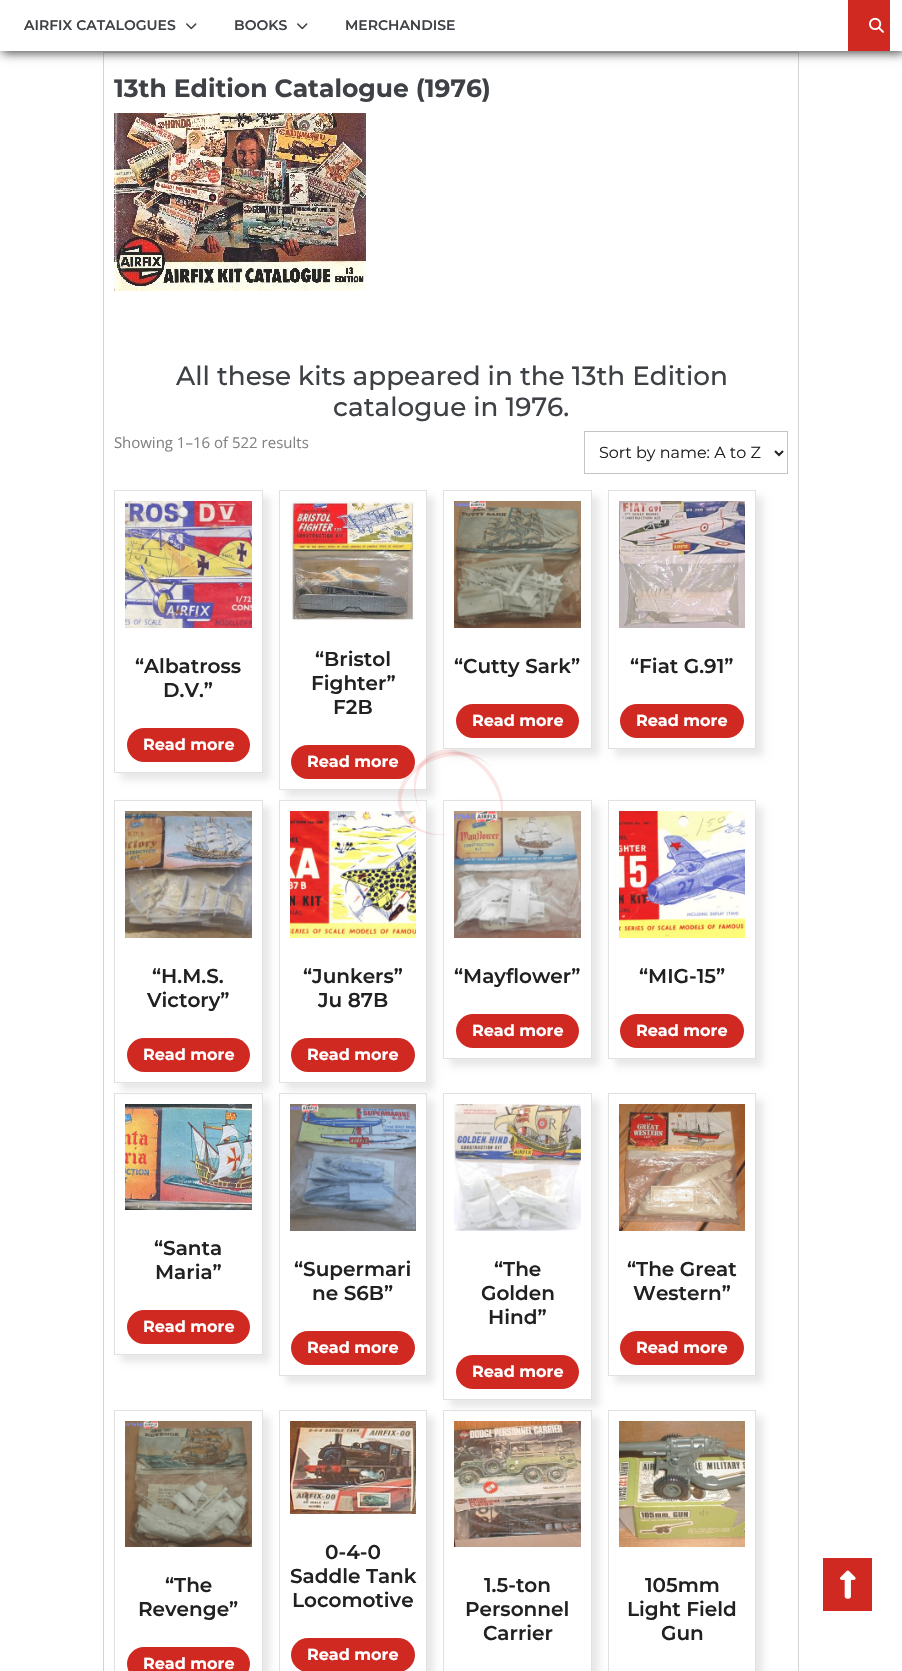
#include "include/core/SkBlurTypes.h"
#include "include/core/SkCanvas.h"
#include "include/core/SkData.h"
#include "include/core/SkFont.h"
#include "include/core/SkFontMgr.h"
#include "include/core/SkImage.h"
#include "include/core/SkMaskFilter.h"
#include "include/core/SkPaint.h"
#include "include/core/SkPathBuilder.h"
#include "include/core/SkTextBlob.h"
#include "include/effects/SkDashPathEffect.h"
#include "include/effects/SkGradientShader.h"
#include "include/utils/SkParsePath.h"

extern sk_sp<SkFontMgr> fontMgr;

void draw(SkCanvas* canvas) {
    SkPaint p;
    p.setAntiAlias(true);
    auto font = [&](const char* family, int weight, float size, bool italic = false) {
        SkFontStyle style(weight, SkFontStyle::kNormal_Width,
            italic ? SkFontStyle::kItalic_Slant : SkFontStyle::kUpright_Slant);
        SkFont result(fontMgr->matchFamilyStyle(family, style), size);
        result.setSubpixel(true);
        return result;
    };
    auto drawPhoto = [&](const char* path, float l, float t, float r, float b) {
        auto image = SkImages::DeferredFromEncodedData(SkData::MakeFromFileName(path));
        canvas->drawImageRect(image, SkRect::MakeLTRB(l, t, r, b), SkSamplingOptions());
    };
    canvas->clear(0xFFFFFFFF);
    p.setStyle(SkPaint::kStroke_Style);
    p.setStrokeWidth(1);
    p.setColor(0xFFD3D3D3);
    canvas->drawRect(SkRect::MakeLTRB(103.5f, 52.5f, 798.5f, 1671.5f), p);
    p.setStyle(SkPaint::kFill_Style);
    p.setColor(0xFF484848);
    p.setMaskFilter(SkMaskFilter::MakeBlur(kNormal_SkBlurStyle, 5));
    canvas->drawRect(SkRect::MakeLTRB(2, 2, 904, 53), p);
    p.setMaskFilter(nullptr);
    p.setColor(0xFFFFFFFF);
    canvas->drawRect(SkRect::MakeLTRB(0, 0, 902, 51), p);
    auto font1 = font("Montserrat", 600, 14);
    p.setColor(0xFF3E4145);
    canvas->drawString("AIRFIX CATALOGUES", 24, 30, font1, p);
    drawPhoto("media/1.png", 186, 23, 197, 30);
    canvas->drawString("BOOKS", 234, 30, font1, p);
    drawPhoto("media/1.png", 297, 23, 308, 30);
    canvas->drawString("MERCHANDISE", 345, 30, font1, p);
    p.setColor(0xFFD02921);
    canvas->drawRect(SkRect::MakeLTRB(848, 0, 890, 51), p);
    drawPhoto("media/2.png", 869, 17, 884, 33);
    auto font2 = font("Montserrat", 700, 25);
    p.setColor(0xFF3E4145);
    canvas->drawString("13th Edition Catalogue (1976)", 114, 97, font2, p);
    drawPhoto("media/3.png", 114, 113, 366, 291);
    auto font3 = font("Montserrat", 500, 26.25f);
    canvas->drawString("All these kits appeared in the 13th Edition", 176, 385, font3, p);
    canvas->drawString("catalogue in 1976.", 333, 416, font3, p);
    auto font4 = font("Noto Sans", 400, 15);
    p.setColor(0xFF838383);
    canvas->drawString("S", 114, 448, font4, p);
    auto font5 = font("Open Sans", 400, 15);
    canvas->drawString("howing 1–16 of 522 results", 122, 448, font5, p);
    p.setStyle(SkPaint::kStroke_Style);
    p.setColor(0xFFC4C4C4);
    canvas->drawRect(SkRect::MakeLTRB(584.5f, 431.5f, 787.5f, 473.5f), p);
    p.setStrokeWidth(2);
    p.setColor(0xFF212121);
    canvas->drawPath(SkPathBuilder().moveTo(775, 451).lineTo(779, 455).lineTo(783, 451).detach(), p);
    auto font6 = font("Montserrat", 400, 16);
    p.setStyle(SkPaint::kFill_Style);
    canvas->drawString("Sort by name: A to Z", 599, 458, font6, p);
    canvas->save();
    canvas->clipPath(SkPathBuilder(SkPathFillType::kEvenOdd).moveTo(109, 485).lineTo(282, 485).lineTo(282, 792).lineTo(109, 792).close().moveTo(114, 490).lineTo(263, 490).lineTo(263, 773).lineTo(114, 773).close().detach(), true);
    p.setColor(0xFFE8E8E8);
    p.setMaskFilter(SkMaskFilter::MakeBlur(kNormal_SkBlurStyle, 3.5f));
    canvas->drawRect(SkRect::MakeLTRB(121, 497, 270, 780), p);
    p.setMaskFilter(nullptr);
    canvas->restore();
    p.setStyle(SkPaint::kStroke_Style);
    p.setStrokeWidth(1);
    p.setColor(0xFFE1E1E1);
    canvas->drawRect(SkRect::MakeLTRB(114.5f, 490.5f, 262.5f, 772.5f), p);
    drawPhoto("media/4.png", 125, 501, 252, 628);
    auto font7 = font("Montserrat", 600, 20);
    p.setStyle(SkPaint::kFill_Style);
    p.setColor(0xFF212121);
    canvas->drawString("“Albatross", 135, 673, font7, p);
    canvas->drawString("D.V.”", 163, 697, font7, p);
    p.setColor(0xFFD02921);
    canvas->drawRoundRect(SkRect::MakeLTRB(127, 728, 250, 762), 17, 17, p);
    auto font8 = font("Montserrat", 700, 16);
    p.setColor(0xFFFFFFFF);
    canvas->drawString("Read more", 143, 750, font8, p);
    canvas->save();
    canvas->clipPath(SkPathBuilder(SkPathFillType::kEvenOdd).moveTo(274, 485).lineTo(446, 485).lineTo(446, 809).lineTo(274, 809).close().moveTo(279, 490).lineTo(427, 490).lineTo(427, 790).lineTo(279, 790).close().detach(), true);
    p.setColor(0xFFE8E8E8);
    p.setMaskFilter(SkMaskFilter::MakeBlur(kNormal_SkBlurStyle, 3.5f));
    canvas->drawRect(SkRect::MakeLTRB(286, 497, 434, 797), p);
    p.setMaskFilter(nullptr);
    canvas->restore();
    p.setStyle(SkPaint::kStroke_Style);
    p.setColor(0xFFE1E1E1);
    canvas->drawRect(SkRect::MakeLTRB(279.5f, 490.5f, 426.5f, 789.5f), p);
    drawPhoto("media/5.png", 290, 501, 416, 621);
    p.setStyle(SkPaint::kFill_Style);
    p.setColor(0xFF212121);
    {
        const struct { const char* s; float x, y; } items[] = {
            {"“Bristol", 315, 666},
            {"Fighter”", 311, 690},
            {"F2B", 333, 714},
        };
        for (auto [s, x, y] : items) {
            canvas->drawString(s, x, y, font7, p);
        }
    }
    p.setColor(0xFFD02921);
    canvas->drawRoundRect(SkRect::MakeLTRB(291, 745, 415, 779), 17, 17, p);
    p.setColor(0xFFFFFFFF);
    canvas->drawString("Read more", 307, 767, font8, p);
    canvas->save();
    canvas->clipPath(SkPathBuilder(SkPathFillType::kEvenOdd).moveTo(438, 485).lineTo(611, 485).lineTo(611, 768).lineTo(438, 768).close().moveTo(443, 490).lineTo(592, 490).lineTo(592, 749).lineTo(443, 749).close().detach(), true);
    p.setColor(0xFFE8E8E8);
    p.setMaskFilter(SkMaskFilter::MakeBlur(kNormal_SkBlurStyle, 3.5f));
    canvas->drawRect(SkRect::MakeLTRB(450, 497, 599, 756), p);
    p.setMaskFilter(nullptr);
    canvas->restore();
    p.setStyle(SkPaint::kStroke_Style);
    p.setColor(0xFFE1E1E1);
    canvas->drawRect(SkRect::MakeLTRB(443.5f, 490.5f, 591.5f, 748.5f), p);
    drawPhoto("media/6.png", 454, 501, 581, 628);
    p.setStyle(SkPaint::kFill_Style);
    p.setColor(0xFF212121);
    canvas->drawString("“Cutty Sark”", 454, 673, font7, p);
    p.setColor(0xFFD02921);
    canvas->drawRoundRect(SkRect::MakeLTRB(456, 704, 579, 738), 17, 17, p);
    p.setColor(0xFFFFFFFF);
    canvas->drawString("Read more", 472, 726, font8, p);
    canvas->save();
    canvas->clipPath(SkPathBuilder(SkPathFillType::kEvenOdd).moveTo(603, 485).lineTo(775, 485).lineTo(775, 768).lineTo(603, 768).close().moveTo(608, 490).lineTo(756, 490).lineTo(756, 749).lineTo(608, 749).close().detach(), true);
    p.setColor(0xFFE8E8E8);
    p.setMaskFilter(SkMaskFilter::MakeBlur(kNormal_SkBlurStyle, 3.5f));
    canvas->drawRect(SkRect::MakeLTRB(615, 497, 763, 756), p);
    p.setMaskFilter(nullptr);
    canvas->restore();
    p.setStyle(SkPaint::kStroke_Style);
    p.setColor(0xFFE1E1E1);
    canvas->drawRect(SkRect::MakeLTRB(608.5f, 490.5f, 755.5f, 748.5f), p);
    drawPhoto("media/7.png", 619, 501, 745, 628);
    p.setStyle(SkPaint::kFill_Style);
    p.setColor(0xFF212121);
    canvas->drawString("“Fiat G.91”", 630, 673, font7, p);
    p.setColor(0xFFD02921);
    canvas->drawRoundRect(SkRect::MakeLTRB(620, 704, 744, 738), 17, 17, p);
    p.setColor(0xFFFFFFFF);
    canvas->drawString("Read more", 636, 726, font8, p);
    canvas->save();
    canvas->clipPath(SkPathBuilder(SkPathFillType::kEvenOdd).moveTo(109, 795).lineTo(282, 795).lineTo(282, 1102).lineTo(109, 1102).close().moveTo(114, 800).lineTo(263, 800).lineTo(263, 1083).lineTo(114, 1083).close().detach(), true);
    p.setColor(0xFFE8E8E8);
    p.setMaskFilter(SkMaskFilter::MakeBlur(kNormal_SkBlurStyle, 3.5f));
    canvas->drawRect(SkRect::MakeLTRB(121, 807, 270, 1090), p);
    p.setMaskFilter(nullptr);
    canvas->restore();
    p.setStyle(SkPaint::kStroke_Style);
    p.setColor(0xFFE1E1E1);
    canvas->drawRect(SkRect::MakeLTRB(114.5f, 800.5f, 262.5f, 1082.5f), p);
    drawPhoto("media/8.png", 125, 811, 252, 938);
    p.setStyle(SkPaint::kFill_Style);
    p.setColor(0xFF212121);
    canvas->drawString("“H.M.S.", 152, 983, font7, p);
    canvas->drawString("Victory”", 147, 1007, font7, p);
    p.setColor(0xFFD02921);
    canvas->drawRoundRect(SkRect::MakeLTRB(127, 1038, 250, 1072), 17, 17, p);
    p.setColor(0xFFFFFFFF);
    canvas->drawString("Read more", 143, 1060, font8, p);
    canvas->save();
    canvas->clipPath(SkPathBuilder(SkPathFillType::kEvenOdd).moveTo(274, 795).lineTo(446, 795).lineTo(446, 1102).lineTo(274, 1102).close().moveTo(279, 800).lineTo(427, 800).lineTo(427, 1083).lineTo(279, 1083).close().detach(), true);
    p.setColor(0xFFE8E8E8);
    p.setMaskFilter(SkMaskFilter::MakeBlur(kNormal_SkBlurStyle, 3.5f));
    canvas->drawRect(SkRect::MakeLTRB(286, 807, 434, 1090), p);
    p.setMaskFilter(nullptr);
    canvas->restore();
    p.setStyle(SkPaint::kStroke_Style);
    p.setColor(0xFFE1E1E1);
    canvas->drawRect(SkRect::MakeLTRB(279.5f, 800.5f, 426.5f, 1082.5f), p);
    drawPhoto("media/9.png", 290, 811, 416, 938);
    p.setStyle(SkPaint::kFill_Style);
    p.setColor(0xFF212121);
    canvas->drawString("“Junkers”", 303, 983, font7, p);
    canvas->drawString("Ju 87B", 318, 1007, font7, p);
    p.setColor(0xFFD02921);
    canvas->drawRoundRect(SkRect::MakeLTRB(291, 1038, 415, 1072), 17, 17, p);
    p.setColor(0xFFFFFFFF);
    canvas->drawString("Read more", 307, 1060, font8, p);
    canvas->save();
    canvas->clipPath(SkPathBuilder(SkPathFillType::kEvenOdd).moveTo(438, 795).lineTo(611, 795).lineTo(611, 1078).lineTo(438, 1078).close().moveTo(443, 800).lineTo(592, 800).lineTo(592, 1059).lineTo(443, 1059).close().detach(), true);
    p.setColor(0xFFE8E8E8);
    p.setMaskFilter(SkMaskFilter::MakeBlur(kNormal_SkBlurStyle, 3.5f));
    canvas->drawRect(SkRect::MakeLTRB(450, 807, 599, 1066), p);
    p.setMaskFilter(nullptr);
    canvas->restore();
    p.setStyle(SkPaint::kStroke_Style);
    p.setColor(0xFFE1E1E1);
    canvas->drawRect(SkRect::MakeLTRB(443.5f, 800.5f, 591.5f, 1058.5f), p);
    drawPhoto("media/10.png", 454, 811, 581, 938);
    p.setStyle(SkPaint::kFill_Style);
    p.setColor(0xFF212121);
    canvas->drawString("“Mayflower”", 454, 983, font7, p);
    p.setColor(0xFFD02921);
    canvas->drawRoundRect(SkRect::MakeLTRB(456, 1014, 579, 1048), 17, 17, p);
    p.setColor(0xFFFFFFFF);
    canvas->drawString("Read more", 472, 1036, font8, p);
    canvas->save();
    canvas->clipPath(SkPathBuilder(SkPathFillType::kEvenOdd).moveTo(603, 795).lineTo(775, 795).lineTo(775, 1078).lineTo(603, 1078).close().moveTo(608, 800).lineTo(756, 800).lineTo(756, 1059).lineTo(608, 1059).close().detach(), true);
    p.setColor(0xFFE8E8E8);
    p.setMaskFilter(SkMaskFilter::MakeBlur(kNormal_SkBlurStyle, 3.5f));
    canvas->drawRect(SkRect::MakeLTRB(615, 807, 763, 1066), p);
    p.setMaskFilter(nullptr);
    canvas->restore();
    p.setStyle(SkPaint::kStroke_Style);
    p.setColor(0xFFE1E1E1);
    canvas->drawRect(SkRect::MakeLTRB(608.5f, 800.5f, 755.5f, 1058.5f), p);
    drawPhoto("media/11.png", 619, 811, 745, 938);
    p.setStyle(SkPaint::kFill_Style);
    p.setColor(0xFF212121);
    canvas->drawString("“MIG-15”", 639, 983, font7, p);
    p.setColor(0xFFD02921);
    canvas->drawRoundRect(SkRect::MakeLTRB(620, 1014, 744, 1048), 17, 17, p);
    p.setColor(0xFFFFFFFF);
    canvas->drawString("Read more", 636, 1036, font8, p);
    canvas->save();
    canvas->clipPath(SkPathBuilder(SkPathFillType::kEvenOdd).moveTo(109, 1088).lineTo(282, 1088).lineTo(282, 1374).lineTo(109, 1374).close().moveTo(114, 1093).lineTo(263, 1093).lineTo(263, 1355).lineTo(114, 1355).close().detach(), true);
    p.setColor(0xFFE8E8E8);
    p.setMaskFilter(SkMaskFilter::MakeBlur(kNormal_SkBlurStyle, 3.5f));
    canvas->drawRect(SkRect::MakeLTRB(121, 1100, 270, 1362), p);
    p.setMaskFilter(nullptr);
    canvas->restore();
    p.setStyle(SkPaint::kStroke_Style);
    p.setColor(0xFFE1E1E1);
    canvas->drawRect(SkRect::MakeLTRB(114.5f, 1093.5f, 262.5f, 1354.5f), p);
    drawPhoto("media/12.png", 125, 1104, 252, 1210);
    p.setStyle(SkPaint::kFill_Style);
    p.setColor(0xFF212121);
    canvas->drawString("“Santa", 154, 1255, font7, p);
    canvas->drawString("Maria”", 155, 1279, font7, p);
    p.setColor(0xFFD02921);
    canvas->drawRoundRect(SkRect::MakeLTRB(127, 1310, 250, 1344), 17, 17, p);
    p.setColor(0xFFFFFFFF);
    canvas->drawString("Read more", 143, 1332, font8, p);
    canvas->save();
    canvas->clipPath(SkPathBuilder(SkPathFillType::kEvenOdd).moveTo(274, 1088).lineTo(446, 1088).lineTo(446, 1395).lineTo(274, 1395).close().moveTo(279, 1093).lineTo(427, 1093).lineTo(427, 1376).lineTo(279, 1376).close().detach(), true);
    p.setColor(0xFFE8E8E8);
    p.setMaskFilter(SkMaskFilter::MakeBlur(kNormal_SkBlurStyle, 3.5f));
    canvas->drawRect(SkRect::MakeLTRB(286, 1100, 434, 1383), p);
    p.setMaskFilter(nullptr);
    canvas->restore();
    p.setStyle(SkPaint::kStroke_Style);
    p.setColor(0xFFE1E1E1);
    canvas->drawRect(SkRect::MakeLTRB(279.5f, 1093.5f, 426.5f, 1375.5f), p);
    drawPhoto("media/13.png", 290, 1104, 416, 1231);
    p.setStyle(SkPaint::kFill_Style);
    p.setColor(0xFF212121);
    canvas->drawString("“Supermari", 294, 1276, font7, p);
    canvas->drawString("ne S6B”", 312, 1300, font7, p);
    p.setColor(0xFFD02921);
    canvas->drawRoundRect(SkRect::MakeLTRB(291, 1331, 415, 1365), 17, 17, p);
    p.setColor(0xFFFFFFFF);
    canvas->drawString("Read more", 307, 1353, font8, p);
    canvas->save();
    canvas->clipPath(SkPathBuilder(SkPathFillType::kEvenOdd).moveTo(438, 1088).lineTo(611, 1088).lineTo(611, 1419).lineTo(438, 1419).close().moveTo(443, 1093).lineTo(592, 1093).lineTo(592, 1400).lineTo(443, 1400).close().detach(), true);
    p.setColor(0xFFE8E8E8);
    p.setMaskFilter(SkMaskFilter::MakeBlur(kNormal_SkBlurStyle, 3.5f));
    canvas->drawRect(SkRect::MakeLTRB(450, 1100, 599, 1407), p);
    p.setMaskFilter(nullptr);
    canvas->restore();
    p.setStyle(SkPaint::kStroke_Style);
    p.setColor(0xFFE1E1E1);
    canvas->drawRect(SkRect::MakeLTRB(443.5f, 1093.5f, 591.5f, 1399.5f), p);
    drawPhoto("media/14.png", 454, 1104, 581, 1231);
    p.setStyle(SkPaint::kFill_Style);
    p.setColor(0xFF212121);
    {
        const struct { const char* s; float x, y; } items[] = {
            {"“The", 494, 1276},
            {"Golden", 481, 1300},
            {"Hind”", 488, 1324},
        };
        for (auto [s, x, y] : items) {
            canvas->drawString(s, x, y, font7, p);
        }
    }
    p.setColor(0xFFD02921);
    canvas->drawRoundRect(SkRect::MakeLTRB(456, 1355, 579, 1389), 17, 17, p);
    p.setColor(0xFFFFFFFF);
    canvas->drawString("Read more", 472, 1377, font8, p);
    canvas->save();
    canvas->clipPath(SkPathBuilder(SkPathFillType::kEvenOdd).moveTo(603, 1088).lineTo(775, 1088).lineTo(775, 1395).lineTo(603, 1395).close().moveTo(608, 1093).lineTo(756, 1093).lineTo(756, 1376).lineTo(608, 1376).close().detach(), true);
    p.setColor(0xFFE8E8E8);
    p.setMaskFilter(SkMaskFilter::MakeBlur(kNormal_SkBlurStyle, 3.5f));
    canvas->drawRect(SkRect::MakeLTRB(615, 1100, 763, 1383), p);
    p.setMaskFilter(nullptr);
    canvas->restore();
    p.setStyle(SkPaint::kStroke_Style);
    p.setColor(0xFFE1E1E1);
    canvas->drawRect(SkRect::MakeLTRB(608.5f, 1093.5f, 755.5f, 1375.5f), p);
    drawPhoto("media/15.png", 619, 1104, 745, 1231);
    p.setStyle(SkPaint::kFill_Style);
    p.setColor(0xFF212121);
    canvas->drawString("“The Great", 627, 1276, font7, p);
    canvas->drawString("Western”", 633, 1300, font7, p);
    p.setColor(0xFFD02921);
    canvas->drawRoundRect(SkRect::MakeLTRB(620, 1331, 744, 1365), 17, 17, p);
    p.setColor(0xFFFFFFFF);
    canvas->drawString("Read more", 636, 1353, font8, p);
    canvas->save();
    canvas->clipRect(SkRect::MakeLTRB(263, 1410, 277, 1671));
    p.setColor(0xFFE8E8E8);
    p.setMaskFilter(SkMaskFilter::MakeBlur(kNormal_SkBlurStyle, 3.5f));
    canvas->drawRect(SkRect::MakeLTRB(121, 1417, 270, 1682), p);
    p.setMaskFilter(nullptr);
    canvas->restore();
    p.setStyle(SkPaint::kStroke_Style);
    p.setColor(0xFFE1E1E1);
    canvas->drawRect(SkRect::MakeLTRB(114.5f, 1410.5f, 262.5f, 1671.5f), p);
    drawPhoto("media/16.png", 125, 1421, 252, 1547);
    p.setStyle(SkPaint::kFill_Style);
    p.setColor(0xFF212121);
    canvas->drawString("“The", 165, 1592, font7, p);
    canvas->drawString("Revenge”", 138, 1616, font7, p);
    p.setColor(0xFFD02921);
    canvas->drawRoundRect(SkRect::MakeLTRB(127, 1647, 250, 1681), 17, 17, p);
    p.setColor(0xFFFFFFFF);
    canvas->drawString("Read more", 143, 1669, font8, p);
    canvas->save();
    canvas->clipRect(SkRect::MakeLTRB(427, 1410, 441, 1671));
    p.setColor(0xFFE8E8E8);
    p.setMaskFilter(SkMaskFilter::MakeBlur(kNormal_SkBlurStyle, 3.5f));
    canvas->drawRect(SkRect::MakeLTRB(286, 1417, 434, 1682), p);
    p.setMaskFilter(nullptr);
    canvas->restore();
    p.setStyle(SkPaint::kStroke_Style);
    p.setColor(0xFFE1E1E1);
    canvas->drawRect(SkRect::MakeLTRB(279.5f, 1410.5f, 426.5f, 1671.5f), p);
    drawPhoto("media/17.png", 290, 1421, 416, 1514);
    p.setStyle(SkPaint::kFill_Style);
    p.setColor(0xFF212121);
    {
        const struct { const char* s; float x, y; } items[] = {
            {"0-4-0", 325, 1559},
            {"Saddle Tank", 290, 1583},
            {"Locomotive", 292, 1607},
        };
        for (auto [s, x, y] : items) {
            canvas->drawString(s, x, y, font7, p);
        }
    }
    p.setColor(0xFFD02921);
    canvas->drawRoundRect(SkRect::MakeLTRB(291, 1638, 415, 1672), 17, 17, p);
    p.setColor(0xFFFFFFFF);
    canvas->drawString("Read more", 307, 1660, font8, p);
    canvas->save();
    canvas->clipRect(SkRect::MakeLTRB(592, 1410, 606, 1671));
    p.setColor(0xFFE8E8E8);
    p.setMaskFilter(SkMaskFilter::MakeBlur(kNormal_SkBlurStyle, 3.5f));
    canvas->drawRect(SkRect::MakeLTRB(450, 1417, 599, 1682), p);
    p.setMaskFilter(nullptr);
    canvas->restore();
    p.setStyle(SkPaint::kStroke_Style);
    p.setColor(0xFFE1E1E1);
    canvas->drawRect(SkRect::MakeLTRB(443.5f, 1410.5f, 591.5f, 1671.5f), p);
    drawPhoto("media/18.png", 454, 1421, 581, 1547);
    p.setStyle(SkPaint::kFill_Style);
    p.setColor(0xFF212121);
    {
        const struct { const char* s; float x, y; } items[] = {
            {"1.5-ton", 484, 1592},
            {"Personnel", 465, 1616},
            {"Carrier", 483, 1640},
        };
        for (auto [s, x, y] : items) {
            canvas->drawString(s, x, y, font7, p);
        }
    }
    canvas->save();
    canvas->clipRect(SkRect::MakeLTRB(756, 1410, 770, 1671));
    p.setColor(0xFFE8E8E8);
    p.setMaskFilter(SkMaskFilter::MakeBlur(kNormal_SkBlurStyle, 3.5f));
    canvas->drawRect(SkRect::MakeLTRB(615, 1417, 763, 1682), p);
    p.setMaskFilter(nullptr);
    canvas->restore();
    p.setStyle(SkPaint::kStroke_Style);
    p.setColor(0xFFE1E1E1);
    canvas->drawRect(SkRect::MakeLTRB(608.5f, 1410.5f, 755.5f, 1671.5f), p);
    drawPhoto("media/19.png", 619, 1421, 745, 1547);
    p.setStyle(SkPaint::kFill_Style);
    p.setColor(0xFF212121);
    {
        const struct { const char* s; float x, y; } items[] = {
            {"105mm", 645, 1592},
            {"Light Field", 627, 1616},
            {"Gun", 661, 1640},
        };
        for (auto [s, x, y] : items) {
            canvas->drawString(s, x, y, font7, p);
        }
    }
    p.setColor(0xFFD02921);
    canvas->drawRect(SkRect::MakeLTRB(823, 1558, 872, 1611), p);
    drawPhoto("media/20.png", 840, 1570, 856, 1599);
    p.setColor(0x21DD3333);
    canvas->drawPath(SkPathBuilder(SkPathFillType::kEvenOdd).moveTo(496, 776).cubicTo(503, 797, 488, 821, 461, 831).cubicTo(435, 841, 407, 832, 400, 811).cubicTo(392, 790, 407, 766, 434, 756).cubicTo(460, 746, 488, 755, 496, 776).close().moveTo(496, 776).cubicTo(503, 797, 488, 821, 461, 831).cubicTo(437, 840, 411, 830, 403, 810).cubicTo(397, 791, 411, 769, 435, 760).cubicTo(462, 750, 489, 757, 496, 776).close().detach(), p);
    canvas->drawPath(SkPathBuilder(SkPathFillType::kEvenOdd).moveTo(491, 836).cubicTo(475, 850, 446, 844, 428, 822).cubicTo(410, 801, 409, 772, 426, 757).cubicTo(443, 743, 471, 749, 489, 771).cubicTo(507, 792, 508, 821, 491, 836).close().moveTo(491, 836).cubicTo(475, 850, 446, 844, 428, 822).cubicTo(411, 802, 412, 775, 428, 761).cubicTo(444, 748, 470, 753, 486, 773).cubicTo(504, 795, 507, 823, 491, 836).close().detach(), p);
}
